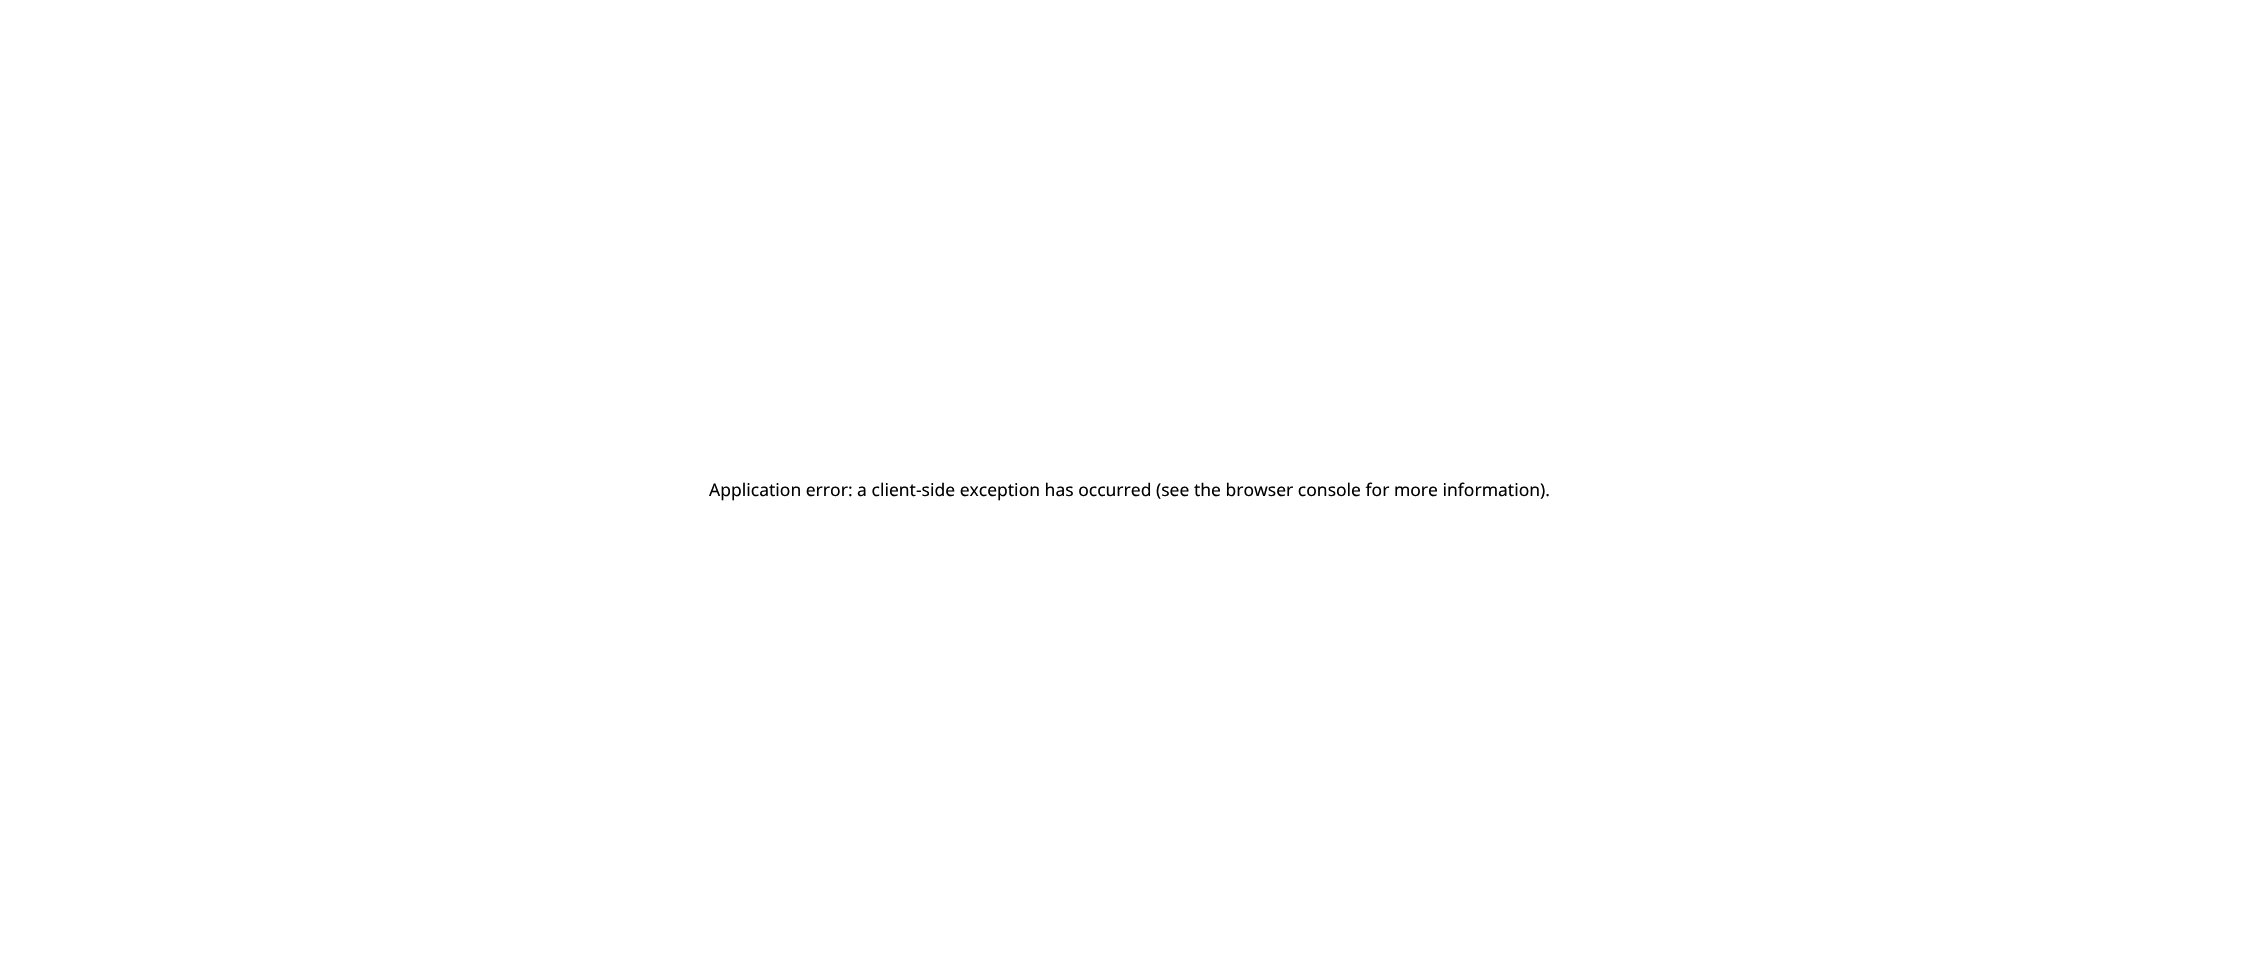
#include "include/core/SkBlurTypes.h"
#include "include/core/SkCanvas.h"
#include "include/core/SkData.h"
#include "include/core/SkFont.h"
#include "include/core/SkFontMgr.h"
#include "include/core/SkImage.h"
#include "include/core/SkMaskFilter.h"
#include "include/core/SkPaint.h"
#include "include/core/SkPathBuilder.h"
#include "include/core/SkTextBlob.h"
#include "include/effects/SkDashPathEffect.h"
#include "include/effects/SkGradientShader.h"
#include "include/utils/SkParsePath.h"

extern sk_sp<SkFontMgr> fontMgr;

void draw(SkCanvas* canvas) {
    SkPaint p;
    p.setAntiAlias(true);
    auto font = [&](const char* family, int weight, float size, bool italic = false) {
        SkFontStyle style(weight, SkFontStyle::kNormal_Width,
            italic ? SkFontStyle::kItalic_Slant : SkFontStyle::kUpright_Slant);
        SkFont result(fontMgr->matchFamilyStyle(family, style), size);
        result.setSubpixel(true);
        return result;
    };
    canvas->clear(0xFFFFFFFF);
    auto font1 = font("Noto Sans", 400, 17.5f);
    p.setColor(0xFF000000);
    canvas->drawString("Application error: a client-side exception has occurred (see the browser console for more information).", 709, 496, font1, p);
}
